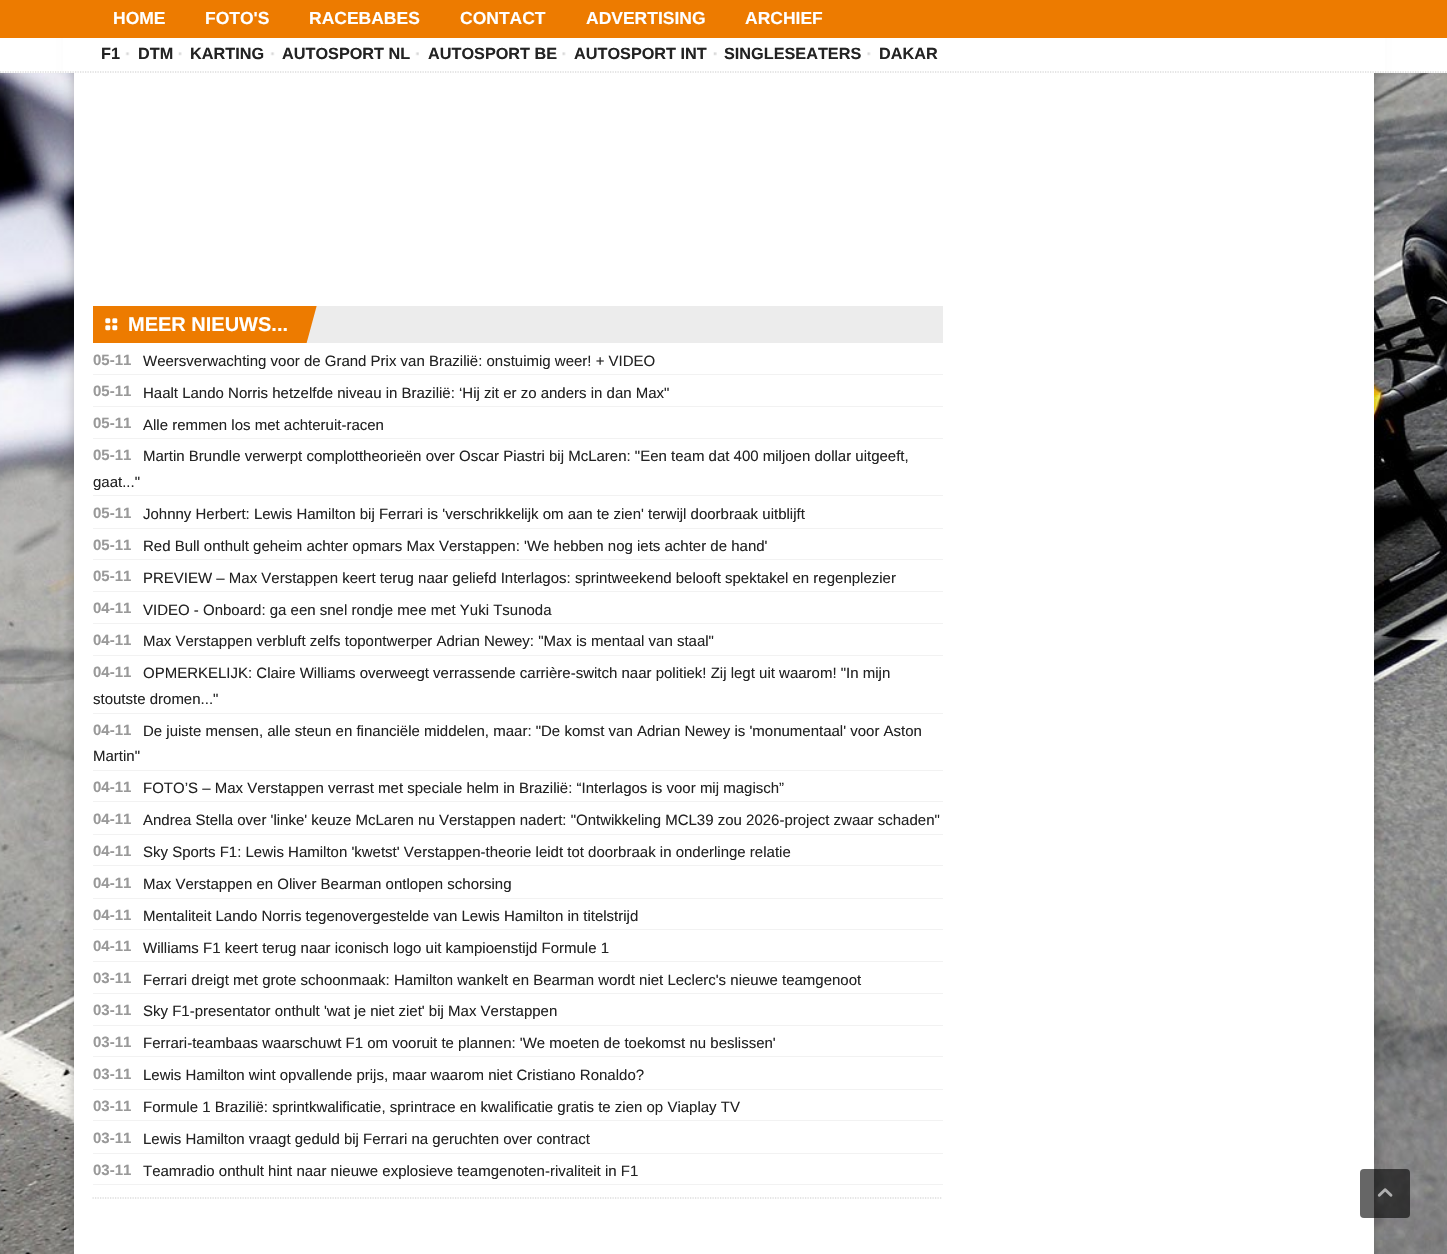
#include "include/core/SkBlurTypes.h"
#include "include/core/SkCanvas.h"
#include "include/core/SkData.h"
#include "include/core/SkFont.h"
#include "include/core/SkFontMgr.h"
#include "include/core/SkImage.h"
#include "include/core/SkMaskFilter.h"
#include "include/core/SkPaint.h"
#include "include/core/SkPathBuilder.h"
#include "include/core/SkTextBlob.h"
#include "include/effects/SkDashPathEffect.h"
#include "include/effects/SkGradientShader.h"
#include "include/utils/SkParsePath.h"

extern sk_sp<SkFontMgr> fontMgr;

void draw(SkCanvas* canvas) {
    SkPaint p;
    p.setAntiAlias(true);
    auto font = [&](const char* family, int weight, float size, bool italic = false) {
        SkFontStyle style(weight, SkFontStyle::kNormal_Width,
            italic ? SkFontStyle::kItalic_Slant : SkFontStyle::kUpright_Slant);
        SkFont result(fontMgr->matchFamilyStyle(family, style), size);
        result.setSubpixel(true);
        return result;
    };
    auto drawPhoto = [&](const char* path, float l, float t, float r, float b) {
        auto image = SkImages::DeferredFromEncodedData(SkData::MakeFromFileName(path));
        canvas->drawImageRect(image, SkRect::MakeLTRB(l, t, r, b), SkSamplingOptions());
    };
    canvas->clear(0xFFFFFFFF);
    drawPhoto("media/1.png", 0, 73, 1447, 1254);
    p.setColor(0x42000000);
    p.setMaskFilter(SkMaskFilter::MakeBlur(kNormal_SkBlurStyle, 6));
    canvas->drawRect(SkRect::MakeLTRB(74, -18, 1374, 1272), p);
    p.setMaskFilter(nullptr);
    p.setColor(0xFFFFFFFF);
    canvas->drawRect(SkRect::MakeLTRB(74, 73, 1374, 1254), p);
    p.setColor(0xFFED7B00);
    canvas->drawRect(SkRect::MakeLTRB(0, 0, 1447, 38), p);
    auto font1 = font("Liberation Sans", 700, 17.5f);
    p.setColor(0xFFFFFFFF);
    {
        const struct { const char* s; float x, y; } items[] = {
            {"HOME", 113, 24},
            {"FOTO'S", 205, 24},
            {"RACEBABES", 309, 24},
            {"CONTACT", 460, 24},
            {"ADVERTISING", 586, 24},
            {"ARCHIEF", 745, 24},
        };
        for (auto [s, x, y] : items) {
            canvas->drawString(s, x, y, font1, p);
        }
    }
    canvas->drawRect(SkRect::MakeLTRB(63, 38, 1385, 73), p);
    p.setStyle(SkPaint::kStroke_Style);
    p.setStrokeWidth(1.2f);
    p.setColor(0xFFCCCCCC);
    p.setPathEffect(SkDashPathEffect::Make({{1.25f, 1.25f}}, 0));
    canvas->drawPath(SkPathBuilder().moveTo(0, 72).lineTo(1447.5f, 72).detach(), p);
    p.setPathEffect(nullptr);
    drawPhoto("media/2.png", 125, 52, 130, 56);
    auto font2 = font("Liberation Sans", 700, 16.25f);
    p.setStyle(SkPaint::kFill_Style);
    p.setColor(0xFF232323);
    canvas->drawString("F1", 101, 59, font2, p);
    drawPhoto("media/3.png", 178, 52, 182, 56);
    canvas->drawString("DTM", 138, 59, font2, p);
    drawPhoto("media/2.png", 270, 52, 275, 56);
    canvas->drawString("KARTING", 190, 59, font2, p);
    drawPhoto("media/4.png", 415, 52, 419, 56);
    canvas->drawString("AUTOSPORT NL", 282, 59, font2, p);
    drawPhoto("media/5.png", 562, 52, 566, 56);
    canvas->drawString("AUTOSPORT BE", 428, 59, font2, p);
    drawPhoto("media/6.png", 713, 52, 717, 56);
    canvas->drawString("AUTOSPORT INT", 574, 59, font2, p);
    drawPhoto("media/5.png", 867, 52, 871, 56);
    canvas->drawString("SINGLESEATERS", 724, 59, font2, p);
    canvas->drawString("DAKAR", 879, 59, font2, p);
    p.setStyle(SkPaint::kStroke_Style);
    p.setColor(0xFFCCCCCC);
    p.setPathEffect(SkDashPathEffect::Make({{1.25f, 1.25f}}, 0));
    canvas->drawPath(SkPathBuilder().moveTo(92.5f, 1198).lineTo(942.5f, 1198).detach(), p);
    p.setPathEffect(nullptr);
    p.setStyle(SkPaint::kFill_Style);
    p.setColor(0xFFECECEC);
    canvas->drawRect(SkRect::MakeLTRB(306, 306, 943, 343), p);
    p.setColor(0xFFED7B00);
    canvas->drawRect(SkRect::MakeLTRB(93, 306, 283, 343), p);
    canvas->save();
    canvas->clipRect(SkRect::MakeLTRB(93, 306, 943, 343));
    canvas->drawPath(SkPathBuilder().moveTo(270, 288).lineTo(318, 301).lineTo(305, 349).lineTo(257, 336).close().detach(), p);
    canvas->restore();
    drawPhoto("media/7.png", 105, 318, 118, 331);
    auto font3 = font("Liberation Sans", 700, 20);
    p.setColor(0xFFFFFFFF);
    canvas->drawString("MEER NIEUWS...", 128, 331, font3, p);
    p.setColor(0xFFF2F2F2);
    canvas->drawRect(SkRect::MakeLTRB(93, 374, 943, 375), p);
    auto font4 = font("Liberation Sans", 700, 15);
    p.setColor(0xFF999999);
    canvas->drawString("05-11", 93, 365, font4, p);
    auto font5 = font("Liberation Sans", 400, 15);
    p.setColor(0xFF232323);
    canvas->drawString("Weersverwachting voor de Grand Prix van Brazilië: onstuimig weer! + VIDEO", 143, 366, font5, p);
    p.setColor(0xFFF2F2F2);
    canvas->drawRect(SkRect::MakeLTRB(93, 406, 943, 407), p);
    p.setColor(0xFF999999);
    canvas->drawString("05-11", 93, 396, font4, p);
    p.setColor(0xFF232323);
    canvas->drawString("Haalt Lando Norris hetzelfde niveau in Brazilië: ‘Hij zit er zo anders in dan Max\"", 143, 398, font5, p);
    p.setColor(0xFFF2F2F2);
    canvas->drawRect(SkRect::MakeLTRB(93, 438, 943, 439), p);
    p.setColor(0xFF999999);
    canvas->drawString("05-11", 93, 428, font4, p);
    p.setColor(0xFF232323);
    canvas->drawString("Alle remmen los met achteruit-racen", 143, 430, font5, p);
    p.setColor(0xFFF2F2F2);
    canvas->drawRect(SkRect::MakeLTRB(93, 495, 943, 496), p);
    p.setColor(0xFF999999);
    canvas->drawString("05-11", 93, 460, font4, p);
    p.setColor(0xFF232323);
    canvas->drawString("Martin Brundle verwerpt complottheorieën over Oscar Piastri bij McLaren: \"Een team dat 400 miljoen dollar uitgeeft,", 143, 461, font5, p);
    canvas->drawString("gaat...\"", 93, 487, font5, p);
    p.setColor(0xFFF2F2F2);
    canvas->drawRect(SkRect::MakeLTRB(93, 528, 943, 529), p);
    p.setColor(0xFF999999);
    canvas->drawString("05-11", 93, 518, font4, p);
    p.setColor(0xFF232323);
    canvas->drawString("Johnny Herbert: Lewis Hamilton bij Ferrari is 'verschrikkelijk om aan te zien' terwijl doorbraak uitblijft", 143, 519, font5, p);
    p.setColor(0xFFF2F2F2);
    canvas->drawRect(SkRect::MakeLTRB(93, 559, 943, 560), p);
    p.setColor(0xFF999999);
    canvas->drawString("05-11", 93, 550, font4, p);
    p.setColor(0xFF232323);
    canvas->drawString("Red Bull onthult geheim achter opmars Max Verstappen: 'We hebben nog iets achter de hand'", 143, 551, font5, p);
    p.setColor(0xFFF2F2F2);
    canvas->drawRect(SkRect::MakeLTRB(93, 591, 943, 592), p);
    p.setColor(0xFF999999);
    canvas->drawString("05-11", 93, 581, font4, p);
    p.setColor(0xFF232323);
    canvas->drawString("PREVIEW – Max Verstappen keert terug naar geliefd Interlagos: sprintweekend belooft spektakel en regenplezier", 143, 583, font5, p);
    p.setColor(0xFFF2F2F2);
    canvas->drawRect(SkRect::MakeLTRB(93, 623, 943, 624), p);
    p.setColor(0xFF999999);
    canvas->drawString("04-11", 93, 613, font4, p);
    p.setColor(0xFF232323);
    canvas->drawString("VIDEO - Onboard: ga een snel rondje mee met Yuki Tsunoda", 143, 615, font5, p);
    p.setColor(0xFFF2F2F2);
    canvas->drawRect(SkRect::MakeLTRB(93, 655, 943, 656), p);
    p.setColor(0xFF999999);
    canvas->drawString("04-11", 93, 645, font4, p);
    p.setColor(0xFF232323);
    canvas->drawString("Max Verstappen verbluft zelfs topontwerper Adrian Newey: \"Max is mentaal van staal\"", 143, 646, font5, p);
    p.setColor(0xFFF2F2F2);
    canvas->drawRect(SkRect::MakeLTRB(93, 713, 943, 714), p);
    p.setColor(0xFF999999);
    canvas->drawString("04-11", 93, 677, font4, p);
    p.setColor(0xFF232323);
    canvas->drawString("OPMERKELIJK: Claire Williams overweegt verrassende carrière-switch naar politiek! Zij legt uit waarom! \"In mijn", 143, 678, font5, p);
    canvas->drawString("stoutste dromen...\"", 93, 704, font5, p);
    p.setColor(0xFFF2F2F2);
    canvas->drawRect(SkRect::MakeLTRB(93, 770, 943, 771), p);
    p.setColor(0xFF999999);
    canvas->drawString("04-11", 93, 735, font4, p);
    p.setColor(0xFF232323);
    canvas->drawString("De juiste mensen, alle steun en financiële middelen, maar: \"De komst van Adrian Newey is 'monumentaal' voor Aston", 143, 736, font5, p);
    canvas->drawString("Martin\"", 93, 761, font5, p);
    p.setColor(0xFFF2F2F2);
    canvas->drawRect(SkRect::MakeLTRB(93, 801, 943, 802), p);
    p.setColor(0xFF999999);
    canvas->drawString("04-11", 93, 792, font4, p);
    p.setColor(0xFF232323);
    canvas->drawString("FOTO’S – Max Verstappen verrast met speciale helm in Brazilië: “Interlagos is voor mij magisch”", 143, 793, font5, p);
    p.setColor(0xFFF2F2F2);
    canvas->drawRect(SkRect::MakeLTRB(93, 834, 943, 835), p);
    p.setColor(0xFF999999);
    canvas->drawString("04-11", 93, 824, font4, p);
    p.setColor(0xFF232323);
    canvas->drawString("Andrea Stella over 'linke' keuze McLaren nu Verstappen nadert: \"Ontwikkeling MCL39 zou 2026-project zwaar schaden\"", 143, 825, font5, p);
    p.setColor(0xFFF2F2F2);
    canvas->drawRect(SkRect::MakeLTRB(93, 865, 943, 866), p);
    p.setColor(0xFF999999);
    canvas->drawString("04-11", 93, 856, font4, p);
    p.setColor(0xFF232323);
    canvas->drawString("Sky Sports F1: Lewis Hamilton 'kwetst' Verstappen-theorie leidt tot doorbraak in onderlinge relatie", 143, 857, font5, p);
    p.setColor(0xFFF2F2F2);
    canvas->drawRect(SkRect::MakeLTRB(93, 898, 943, 899), p);
    p.setColor(0xFF999999);
    canvas->drawString("04-11", 93, 888, font4, p);
    p.setColor(0xFF232323);
    canvas->drawString("Max Verstappen en Oliver Bearman ontlopen schorsing", 143, 889, font5, p);
    p.setColor(0xFFF2F2F2);
    canvas->drawRect(SkRect::MakeLTRB(93, 929, 943, 930), p);
    p.setColor(0xFF999999);
    canvas->drawString("04-11", 93, 920, font4, p);
    p.setColor(0xFF232323);
    canvas->drawString("Mentaliteit Lando Norris tegenovergestelde van Lewis Hamilton in titelstrijd", 143, 921, font5, p);
    p.setColor(0xFFF2F2F2);
    canvas->drawRect(SkRect::MakeLTRB(93, 961, 943, 962), p);
    p.setColor(0xFF999999);
    canvas->drawString("04-11", 93, 951, font4, p);
    p.setColor(0xFF232323);
    canvas->drawString("Williams F1 keert terug naar iconisch logo uit kampioenstijd Formule 1", 143, 953, font5, p);
    p.setColor(0xFFF2F2F2);
    canvas->drawRect(SkRect::MakeLTRB(93, 993, 943, 994), p);
    p.setColor(0xFF999999);
    canvas->drawString("03-11", 93, 983, font4, p);
    p.setColor(0xFF232323);
    canvas->drawString("Ferrari dreigt met grote schoonmaak: Hamilton wankelt en Bearman wordt niet Leclerc's nieuwe teamgenoot", 143, 985, font5, p);
    p.setColor(0xFFF2F2F2);
    canvas->drawRect(SkRect::MakeLTRB(93, 1025, 943, 1026), p);
    p.setColor(0xFF999999);
    canvas->drawString("03-11", 93, 1015, font4, p);
    p.setColor(0xFF232323);
    canvas->drawString("Sky F1-presentator onthult 'wat je niet ziet' bij Max Verstappen", 143, 1016, font5, p);
    p.setColor(0xFFF2F2F2);
    canvas->drawRect(SkRect::MakeLTRB(93, 1056, 943, 1057), p);
    p.setColor(0xFF999999);
    canvas->drawString("03-11", 93, 1047, font4, p);
    p.setColor(0xFF232323);
    canvas->drawString("Ferrari-teambaas waarschuwt F1 om vooruit te plannen: 'We moeten de toekomst nu beslissen'", 143, 1048, font5, p);
    p.setColor(0xFFF2F2F2);
    canvas->drawRect(SkRect::MakeLTRB(93, 1089, 943, 1090), p);
    p.setColor(0xFF999999);
    canvas->drawString("03-11", 93, 1079, font4, p);
    p.setColor(0xFF232323);
    canvas->drawString("Lewis Hamilton wint opvallende prijs, maar waarom niet Cristiano Ronaldo?", 143, 1080, font5, p);
    p.setColor(0xFFF2F2F2);
    canvas->drawRect(SkRect::MakeLTRB(93, 1120, 943, 1121), p);
    p.setColor(0xFF999999);
    canvas->drawString("03-11", 93, 1111, font4, p);
    p.setColor(0xFF232323);
    canvas->drawString("Formule 1 Brazilië: sprintkwalificatie, sprintrace en kwalificatie gratis te zien op Viaplay TV", 143, 1112, font5, p);
    p.setColor(0xFFF2F2F2);
    canvas->drawRect(SkRect::MakeLTRB(93, 1153, 943, 1154), p);
    p.setColor(0xFF999999);
    canvas->drawString("03-11", 93, 1143, font4, p);
    p.setColor(0xFF232323);
    canvas->drawString("Lewis Hamilton vraagt geduld bij Ferrari na geruchten over contract", 143, 1144, font5, p);
    p.setColor(0xFFF2F2F2);
    canvas->drawRect(SkRect::MakeLTRB(93, 1184, 943, 1185), p);
    p.setColor(0xFF999999);
    canvas->drawString("03-11", 93, 1175, font4, p);
    p.setColor(0xFF232323);
    canvas->drawString("Teamradio onthult hint naar nieuwe explosieve teamgenoten-rivaliteit in F1", 143, 1176, font5, p);
    p.setColor(0x99000000);
    canvas->drawRoundRect(SkRect::MakeLTRB(1360, 1169, 1410, 1218), 4, 4, p);
    drawPhoto("media/8.png", 1377, 1188, 1393, 1197);
}
